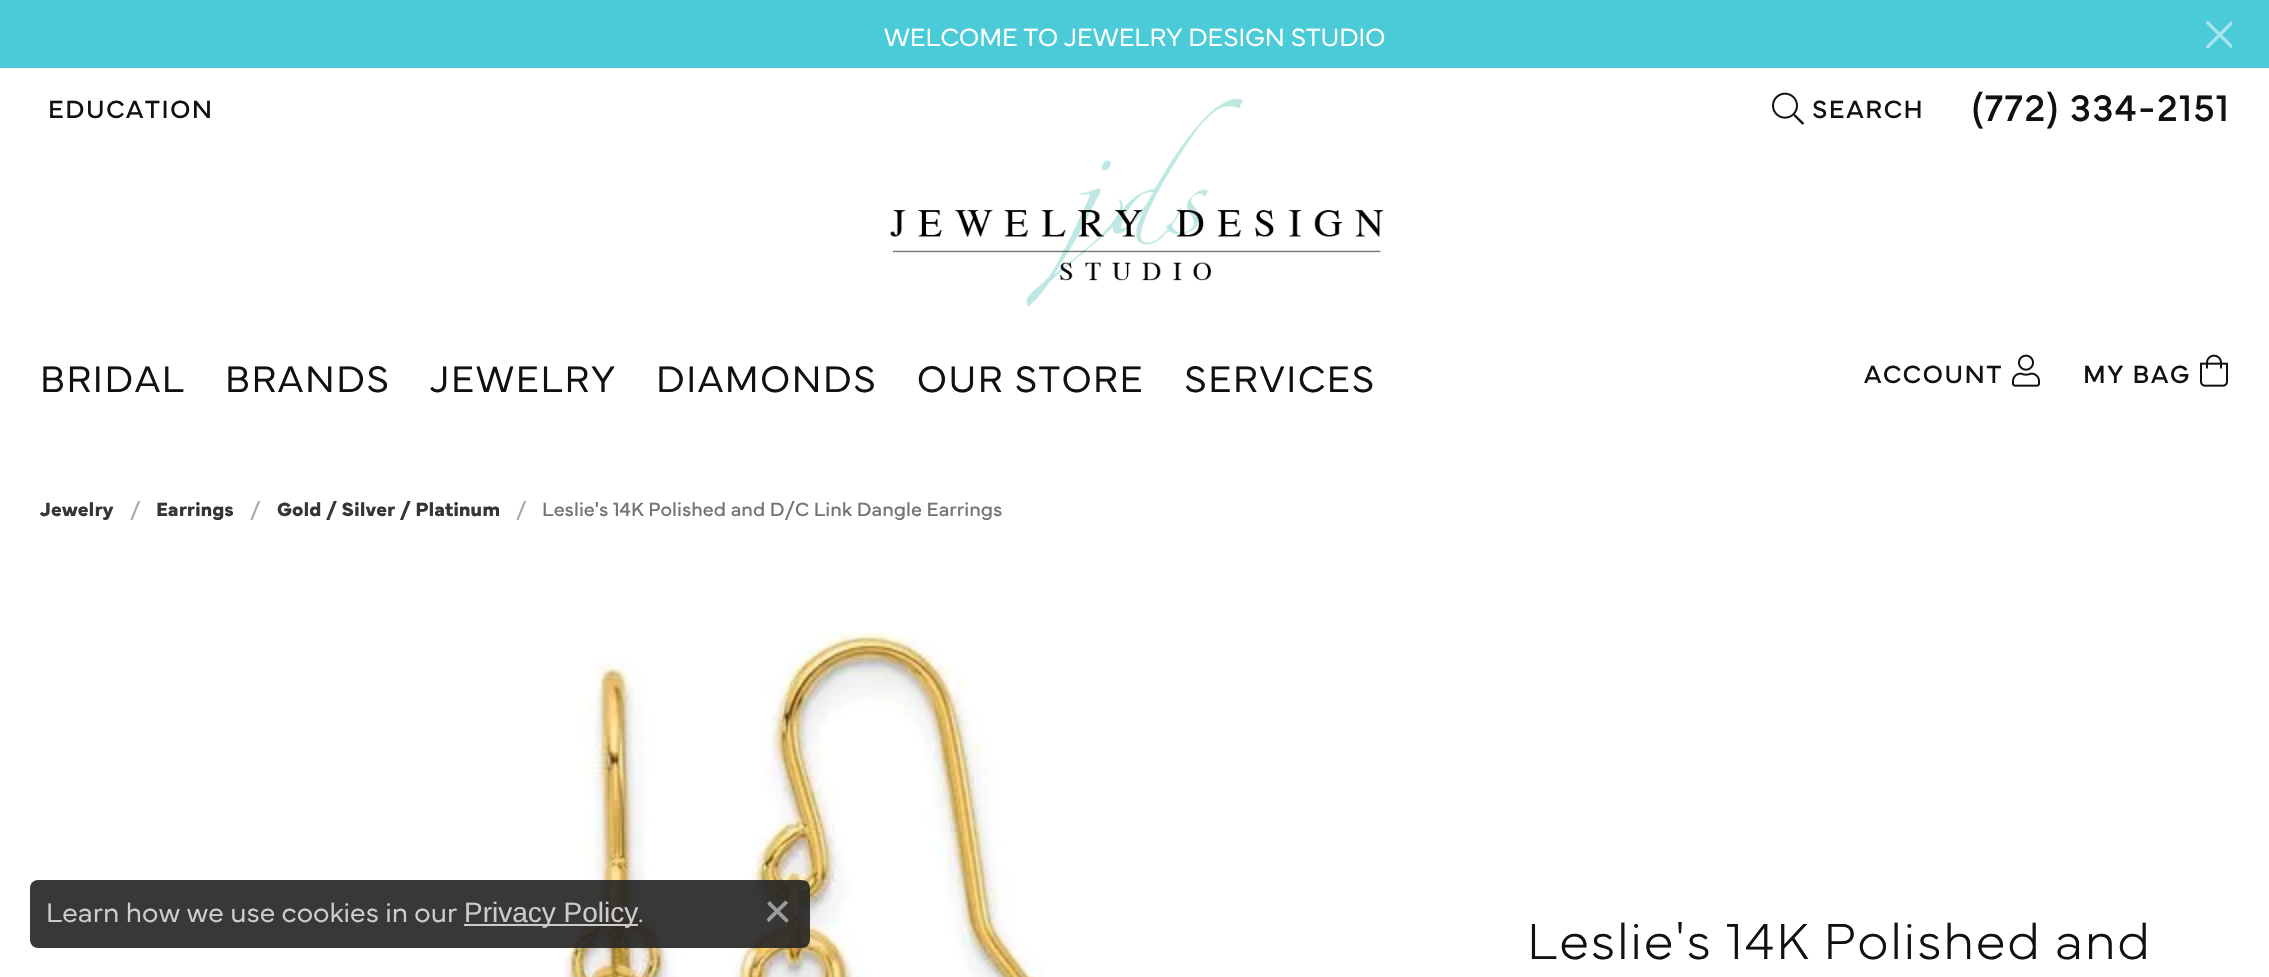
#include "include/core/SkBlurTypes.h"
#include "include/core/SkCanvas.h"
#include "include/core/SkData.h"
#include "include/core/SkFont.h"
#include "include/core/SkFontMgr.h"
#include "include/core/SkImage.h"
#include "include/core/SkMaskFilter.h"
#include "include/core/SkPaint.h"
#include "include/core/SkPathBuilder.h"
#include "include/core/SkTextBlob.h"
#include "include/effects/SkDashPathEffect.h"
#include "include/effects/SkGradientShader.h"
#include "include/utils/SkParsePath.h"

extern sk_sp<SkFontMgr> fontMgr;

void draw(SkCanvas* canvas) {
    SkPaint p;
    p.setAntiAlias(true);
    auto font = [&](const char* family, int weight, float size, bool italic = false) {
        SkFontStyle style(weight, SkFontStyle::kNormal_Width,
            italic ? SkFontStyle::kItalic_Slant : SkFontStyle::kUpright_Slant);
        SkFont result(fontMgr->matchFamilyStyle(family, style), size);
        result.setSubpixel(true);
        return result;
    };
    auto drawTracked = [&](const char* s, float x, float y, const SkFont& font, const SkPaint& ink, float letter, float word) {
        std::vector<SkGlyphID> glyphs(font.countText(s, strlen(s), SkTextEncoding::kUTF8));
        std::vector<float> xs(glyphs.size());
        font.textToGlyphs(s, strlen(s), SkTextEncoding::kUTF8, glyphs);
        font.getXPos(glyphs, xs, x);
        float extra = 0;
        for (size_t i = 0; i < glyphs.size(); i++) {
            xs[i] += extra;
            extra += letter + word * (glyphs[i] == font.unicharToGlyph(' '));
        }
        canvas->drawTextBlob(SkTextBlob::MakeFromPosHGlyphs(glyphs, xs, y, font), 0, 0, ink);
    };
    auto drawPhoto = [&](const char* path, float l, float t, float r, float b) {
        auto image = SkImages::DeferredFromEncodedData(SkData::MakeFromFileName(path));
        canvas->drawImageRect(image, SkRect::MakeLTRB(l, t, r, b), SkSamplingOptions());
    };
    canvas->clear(0xFFFFFFFF);
    p.setColor(0xFF4BCAD8);
    canvas->drawRect(SkRect::MakeLTRB(0, 0, 2269, 68), p);
    auto font1 = font("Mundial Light", 300, 26);
    p.setColor(0xFFFFFFFF);
    canvas->drawString("WELCOME TO JEWELRY DESIGN STUDIO", 884, 46, font1, p);
    drawPhoto("media/1.png", 2206, 21, 2232, 48);
    auto font2 = font("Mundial", 400, 26);
    p.setColor(0xFF111111);
    drawTracked("EDUCATION", 48, 118, font2, p, 1.6f, 0);
    drawPhoto("media/2.png", 1772, 92, 1804, 125);
    drawTracked("SEARCH", 1812, 118, font2, p, 1.6f, 0);
    auto font3 = font("Mundial", 400, 38.5f);
    drawTracked("(772) 334-2151", 1972, 121, font3, p, 1.6f, 0);
    drawPhoto("media/3.png", 890, 98, 1384, 307);
    auto font4 = font("Mundial Light", 300, 38.5f);
    {
        const struct { const char* s; float x, y; } items[] = {
            {"BRIDAL", 40, 392},
            {"BRANDS", 225, 392},
            {"JEWELRY", 430, 392},
            {"DIAMONDS", 656, 392},
            {"OUR STORE", 917, 392},
            {"SERVICES", 1184, 392},
        };
        for (auto [s, x, y] : items) {
            drawTracked(s, x, y, font4, p, 1.6f, 0);
        }
    }
    drawTracked("ACCOUNT", 1864, 383, font2, p, 1.6f, 0);
    drawPhoto("media/4.png", 2012, 354, 2040, 387);
    drawTracked("MY BAG", 2083, 383, font2, p, 1.6f, 0);
    drawPhoto("media/5.png", 2200, 354, 2228, 387);
    auto font5 = font("Mundial", 700, 20);
    p.setColor(0xFF353535);
    canvas->drawString("Jewelry", 40, 516, font5, p);
    auto font6 = font("Mundial", 400, 20);
    p.setColor(0xFFA8A8A8);
    canvas->drawString("/", 130, 516, font6, p);
    p.setColor(0xFF353535);
    canvas->drawString("Earrings", 156, 516, font5, p);
    p.setColor(0xFFA8A8A8);
    canvas->drawString("/", 250, 516, font6, p);
    p.setColor(0xFF353535);
    canvas->drawString("Gold / Silver / Platinum", 277, 516, font5, p);
    p.setColor(0xFFA8A8A8);
    canvas->drawString("/", 516, 516, font6, p);
    p.setColor(0xFF757575);
    canvas->drawString("Leslie's 14K Polished and D/C Link Dangle Earrings", 542, 516, font6, p);
    drawPhoto("media/6.png", 563, 631, 1045, 977);
    auto font7 = font("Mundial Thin", 100, 52.9f);
    p.setColor(0xFF111111);
    drawTracked("Leslie's 14K Polished and", 1527, 959, font7, p, 1.6f, 0);
    p.setColor(0xE6222222);
    canvas->drawRoundRect(SkRect::MakeLTRB(30, 880, 810, 948), 8, 8, p);
    auto font8 = font("Mundial Light", 300, 28);
    p.setColor(0xFFCCCCCC);
    canvas->drawString("Learn how we use cookies in our", 46, 922, font8, p);
    canvas->drawRect(SkRect::MakeLTRB(464, 924, 638, 926), p);
    auto font9 = font("Liberation Sans", 400, 28);
    canvas->drawString("Privacy Policy", 464, 922, font9, p);
    canvas->drawString(".", 638, 922, font8, p);
    drawPhoto("media/7.png", 766, 900, 789, 923);
}
